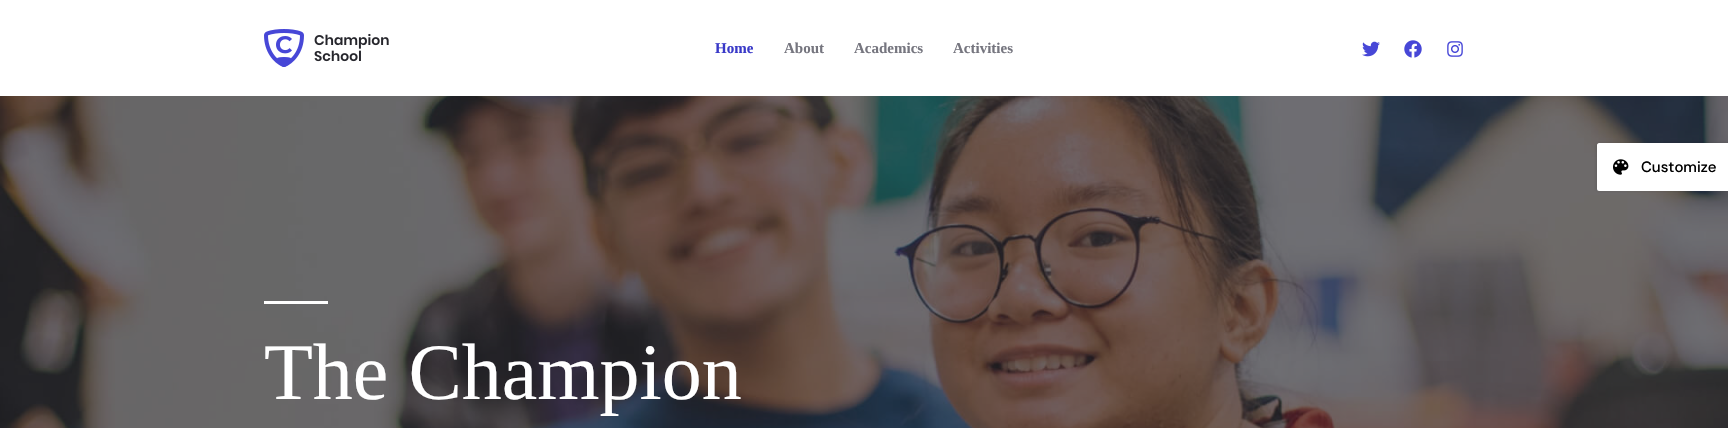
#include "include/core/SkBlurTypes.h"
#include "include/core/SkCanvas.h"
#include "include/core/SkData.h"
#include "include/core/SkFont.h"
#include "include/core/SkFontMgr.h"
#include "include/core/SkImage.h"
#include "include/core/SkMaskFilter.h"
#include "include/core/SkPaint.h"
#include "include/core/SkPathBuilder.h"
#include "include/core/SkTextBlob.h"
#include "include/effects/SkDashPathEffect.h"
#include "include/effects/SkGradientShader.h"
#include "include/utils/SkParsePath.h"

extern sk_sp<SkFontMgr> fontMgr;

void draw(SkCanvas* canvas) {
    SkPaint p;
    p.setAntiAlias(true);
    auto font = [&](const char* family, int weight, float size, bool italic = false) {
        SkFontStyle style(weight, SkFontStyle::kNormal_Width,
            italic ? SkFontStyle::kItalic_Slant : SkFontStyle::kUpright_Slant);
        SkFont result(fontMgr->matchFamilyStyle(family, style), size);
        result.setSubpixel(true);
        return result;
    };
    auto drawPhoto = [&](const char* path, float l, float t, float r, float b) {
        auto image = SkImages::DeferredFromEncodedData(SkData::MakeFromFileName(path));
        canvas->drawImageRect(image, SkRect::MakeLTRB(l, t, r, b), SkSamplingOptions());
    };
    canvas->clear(0xFFFFFFFF);
    drawPhoto("media/1.png", 264, 29, 389, 67);
    auto font1 = font("Liberation Serif", 700, 15);
    p.setColor(0xFF3939C8);
    canvas->drawString("Home", 715, 53, font1, p);
    p.setColor(0xFF76767F);
    {
        const struct { const char* s; float x, y; } items[] = {
            {"About", 784, 53},
            {"Academics", 854, 53},
            {"Activities", 953, 53},
        };
        for (auto [s, x, y] : items) {
            canvas->drawString(s, x, y, font1, p);
        }
    }
    drawPhoto("media/2.png", 1362, 41, 1380, 57);
    drawPhoto("media/3.png", 1404, 40, 1422, 58);
    drawPhoto("media/4.png", 1447, 41, 1463, 57);
    drawPhoto("media/5.png", 0, 96, 1728, 428);
    p.setColor(0xFFFFFFFF);
    canvas->drawRect(SkRect::MakeLTRB(264, 301, 328, 304), p);
    auto font2 = font("Liberation Serif", 400, 80);
    canvas->drawString("The Champion", 264, 399, font2, p);
    p.setColor(0x1A000000);
    p.setMaskFilter(SkMaskFilter::MakeBlur(kNormal_SkBlurStyle, 1.5f));
    canvas->drawRoundRect(SkRect::MakeLTRB(1596, 143, 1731, 191), 2, 2, p);
    p.setMaskFilter(nullptr);
    p.setColor(0xFFFFFFFF);
    canvas->drawPath(SkPathBuilder().moveTo(1599, 143).lineTo(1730, 143).lineTo(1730, 191).lineTo(1599, 191).cubicTo(1598, 191, 1597, 190, 1597, 189).lineTo(1597, 145).cubicTo(1597, 144, 1598, 143, 1599, 143).close().detach(), p);
    drawPhoto("media/6.png", 1613, 159, 1629, 175);
    auto font3 = font("DM Sans", 500, 15);
    p.setColor(0xFF000000);
    canvas->drawString("Customize", 1641, 172, font3, p);
}
